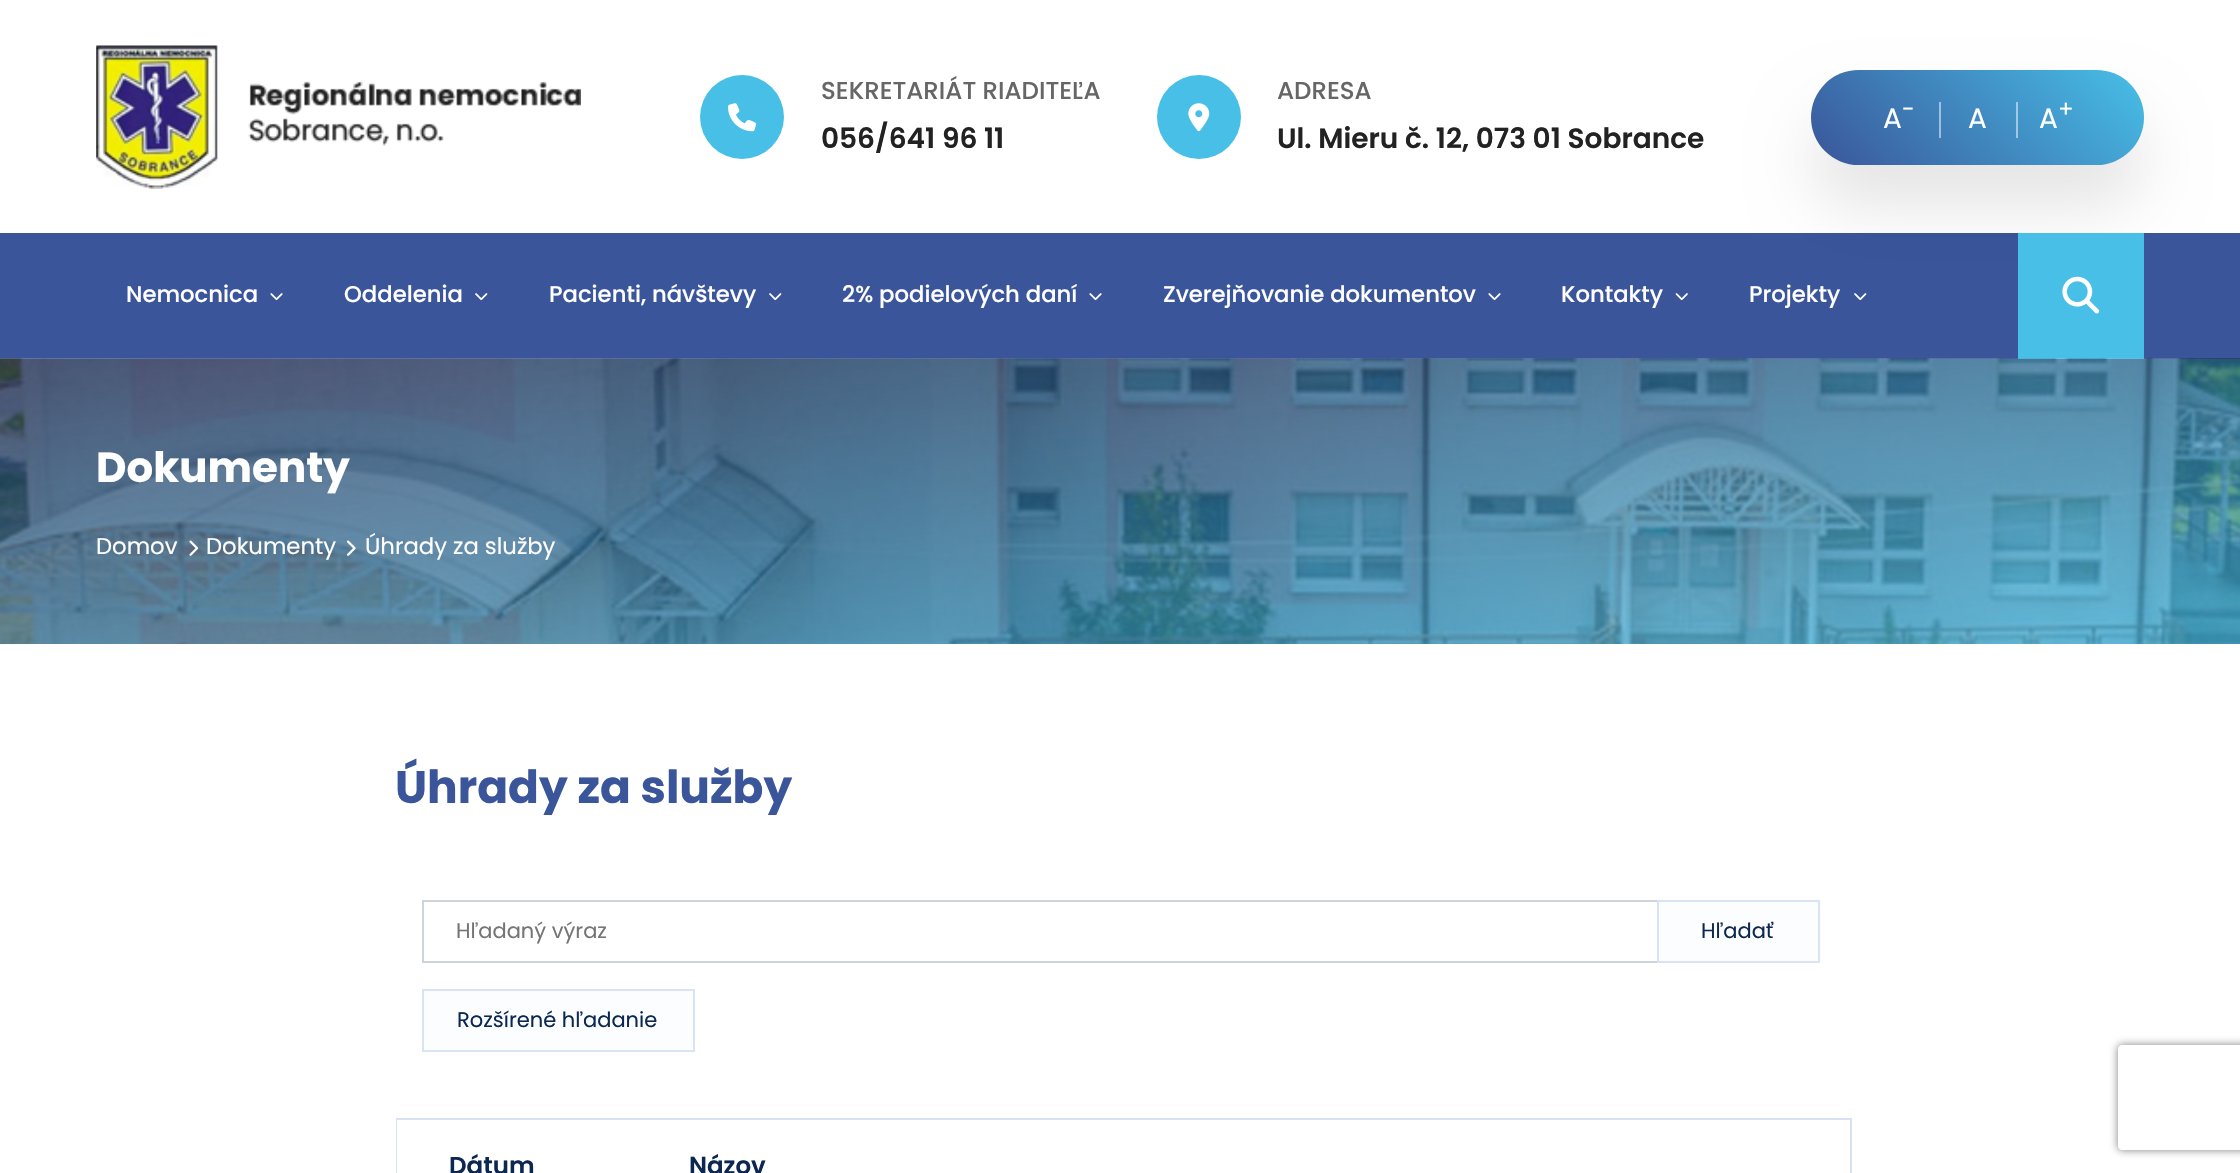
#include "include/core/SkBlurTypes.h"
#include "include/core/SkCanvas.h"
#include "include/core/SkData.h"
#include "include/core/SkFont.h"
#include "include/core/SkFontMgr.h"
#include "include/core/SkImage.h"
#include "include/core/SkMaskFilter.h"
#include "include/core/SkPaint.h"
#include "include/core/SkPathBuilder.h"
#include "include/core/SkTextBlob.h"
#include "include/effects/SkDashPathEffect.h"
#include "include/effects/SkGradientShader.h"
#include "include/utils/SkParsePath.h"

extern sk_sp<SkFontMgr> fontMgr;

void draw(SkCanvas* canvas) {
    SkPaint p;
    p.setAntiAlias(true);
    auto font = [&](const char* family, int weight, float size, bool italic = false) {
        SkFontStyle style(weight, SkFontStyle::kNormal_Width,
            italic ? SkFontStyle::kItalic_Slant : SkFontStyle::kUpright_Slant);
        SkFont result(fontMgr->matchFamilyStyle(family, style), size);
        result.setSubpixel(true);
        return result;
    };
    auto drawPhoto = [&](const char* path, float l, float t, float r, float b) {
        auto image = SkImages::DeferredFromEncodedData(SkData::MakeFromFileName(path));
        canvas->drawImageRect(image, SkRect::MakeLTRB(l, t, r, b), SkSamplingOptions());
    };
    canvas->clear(0xFFFFFFFF);
    drawPhoto("media/1.png", 96, 45, 581, 189);
    p.setColor(0xFF47BFE7);
    canvas->drawCircle(742, 117, 42, p);
    drawPhoto("media/2.png", 728, 103, 756, 132);
    auto font1 = font("Poppins", 500, 24.5f);
    p.setColor(0xFF666666);
    canvas->drawString("SEKRETARIÁT RIADITEĽA", 821, 99, font1, p);
    auto font2 = font("Poppins", 600, 28);
    p.setColor(0xFF222222);
    canvas->drawString("056/641 96 11", 821, 148, font2, p);
    p.setColor(0xFF47BFE7);
    canvas->drawCircle(1199, 117, 42, p);
    drawPhoto("media/3.png", 1188, 103, 1210, 132);
    p.setColor(0xFF666666);
    canvas->drawString("ADRESA", 1277, 99, font1, p);
    p.setColor(0xFF222222);
    canvas->drawString("Ul. Mieru č. 12, 073 01 Sobrance", 1277, 148, font2, p);
    p.setColor(0xFF3A559A);
    canvas->drawRect(SkRect::MakeLTRB(0, 233, 2240, 359), p);
    p.setColor(0x1A000000);
    p.setMaskFilter(SkMaskFilter::MakeBlur(kNormal_SkBlurStyle, 31.5f));
    canvas->drawRoundRect(SkRect::MakeLTRB(1811, 112, 2144, 207), 47.5f, 47.5f, p);
    p.setMaskFilter(nullptr);
    {
        const SkColor colors[] = {0xFF3A559A, 0xFF47BFE7};
        const float stops[] = {0, 1};
        const SkPoint ends[] = {{1871, 224}, {2084, 11}};
        p.setShader(SkGradientShader::MakeLinear(ends, colors, stops, 2, SkTileMode::kClamp));
        p.setAlpha(255);
    }
    canvas->drawRoundRect(SkRect::MakeLTRB(1811, 70, 2144, 165), 47.5f, 47.5f, p);
    {
        const SkColor colors[] = {0xFF9DAACD, 0xFFA3DFF3};
        const float stops[] = {0, 1};
        const SkPoint ends[] = {{1871, 224}, {2084, 11}};
        p.setShader(SkGradientShader::MakeLinear(ends, colors, stops, 2, SkTileMode::kClamp));
        p.setAlpha(255);
    }
    canvas->drawRect(SkRect::MakeLTRB(1939, 102, 1941, 138), p);
    canvas->drawRect(SkRect::MakeLTRB(2016, 102, 2018, 138), p);
    auto font3 = font("Poppins", 400, 28);
    p.setShader(nullptr);
    p.setColor(0xFFFFFFFF);
    canvas->drawString("A", 1883, 128, font3, p);
    auto font4 = font("Poppins", 400, 23);
    canvas->drawString("-", 1902, 117, font4, p);
    canvas->drawString("A", 1968, 128, font3, p);
    canvas->drawString("A", 2039, 128, font3, p);
    canvas->drawString("+", 2058, 117, font4, p);
    auto font5 = font("Poppins", 500, 22.75f);
    canvas->drawString("Nemocnica", 126, 302, font5, p);
    drawPhoto("media/4.png", 270, 293, 283, 301);
    canvas->drawString("Oddelenia", 344, 302, font5, p);
    drawPhoto("media/5.png", 475, 293, 488, 301);
    canvas->drawString("Pacienti, návštevy", 549, 302, font5, p);
    drawPhoto("media/5.png", 769, 293, 782, 301);
    canvas->drawString("2% podielových daní", 842, 302, font5, p);
    drawPhoto("media/4.png", 1089, 293, 1102, 301);
    canvas->drawString("Zverejňovanie dokumentov", 1163, 302, font5, p);
    drawPhoto("media/4.png", 1488, 293, 1501, 301);
    canvas->drawString("Kontakty", 1561, 302, font5, p);
    drawPhoto("media/6.png", 1675, 293, 1688, 301);
    canvas->drawString("Projekty", 1749, 302, font5, p);
    drawPhoto("media/7.png", 1854, 293, 1867, 301);
    p.setColor(0xFF47BFE7);
    canvas->drawRect(SkRect::MakeLTRB(2018, 233, 2144, 359), p);
    drawPhoto("media/8.png", 2062, 276, 2100, 314);
    drawPhoto("media/9.png", 0, 358, 2240, 644);
    auto font6 = font("Poppins", 700, 42);
    p.setColor(0xFFFFFFFF);
    canvas->drawString("Dokumenty", 96, 482, font6, p);
    auto font7 = font("Poppins", 400, 22.75f);
    canvas->drawString("Domov", 96, 554, font7, p);
    drawPhoto("media/10.png", 189, 540, 199, 556);
    canvas->drawString("Dokumenty", 206, 554, font7, p);
    drawPhoto("media/11.png", 347, 540, 356, 556);
    canvas->drawString("Úhrady za služby", 365, 554, font7, p);
    auto font8 = font("Poppins", 700, 45.5f);
    p.setColor(0xFF3A559A);
    canvas->drawString("Úhrady za služby", 395, 803, font8, p);
    p.setStyle(SkPaint::kStroke_Style);
    p.setStrokeWidth(2);
    p.setColor(0xFFCDD5DB);
    canvas->drawRect(SkRect::MakeLTRB(423, 901, 1819, 962), p);
    auto font9 = font("Poppins", 400, 21);
    p.setStyle(SkPaint::kFill_Style);
    p.setColor(0xFF757575);
    canvas->drawString("Hľadaný výraz", 456, 938, font9, p);
    p.setColor(0xFFFBFDFF);
    canvas->drawRect(SkRect::MakeLTRB(1658, 901, 1819, 962), p);
    p.setStyle(SkPaint::kStroke_Style);
    p.setColor(0xFFD9E3F4);
    canvas->drawRect(SkRect::MakeLTRB(1658, 901, 1819, 962), p);
    p.setStyle(SkPaint::kFill_Style);
    p.setColor(0xFF0C2751);
    canvas->drawString("Hľadať", 1701, 938, font9, p);
    p.setColor(0xFFFBFDFF);
    canvas->drawRect(SkRect::MakeLTRB(423, 990, 694, 1051), p);
    p.setStyle(SkPaint::kStroke_Style);
    p.setColor(0xFFD9E3F4);
    canvas->drawRect(SkRect::MakeLTRB(423, 990, 694, 1051), p);
    p.setStyle(SkPaint::kFill_Style);
    p.setColor(0xFF0C2751);
    canvas->drawString("Rozšírené hľadanie", 457, 1027, font9, p);
    p.setStyle(SkPaint::kStroke_Style);
    p.setColor(0xFFD8E2F4);
    canvas->drawRect(SkRect::MakeLTRB(397, 1119, 1851, 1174), p);
    p.setStyle(SkPaint::kFill_Style);
    p.setColor(0xFFFFFFFF);
    canvas->drawRect(SkRect::MakeLTRB(397, 1120, 398, 1173), p);
    auto font10 = font("Poppins", 600, 24.5f);
    p.setColor(0xFF0C2751);
    canvas->drawString("Dátum", 449, 1174, font10, p);
    canvas->drawString("Názov", 689, 1174, font10, p);
    canvas->save();
    canvas->clipPath(SkPathBuilder(SkPathFillType::kEvenOdd).moveTo(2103, 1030).lineTo(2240, 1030).lineTo(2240, 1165).lineTo(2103, 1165).close().moveTo(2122, 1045).lineTo(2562, 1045).cubicTo(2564, 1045, 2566, 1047, 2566, 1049).lineTo(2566, 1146).cubicTo(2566, 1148, 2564, 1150, 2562, 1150).lineTo(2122, 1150).cubicTo(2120, 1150, 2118, 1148, 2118, 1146).lineTo(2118, 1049).cubicTo(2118, 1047, 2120, 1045, 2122, 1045).close().detach(), true);
    p.setColor(0xFF808080);
    p.setMaskFilter(SkMaskFilter::MakeBlur(kNormal_SkBlurStyle, 4.5f));
    canvas->drawRoundRect(SkRect::MakeLTRB(2118, 1045, 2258, 1150), 4, 4, p);
    p.setMaskFilter(nullptr);
    canvas->restore();
}
